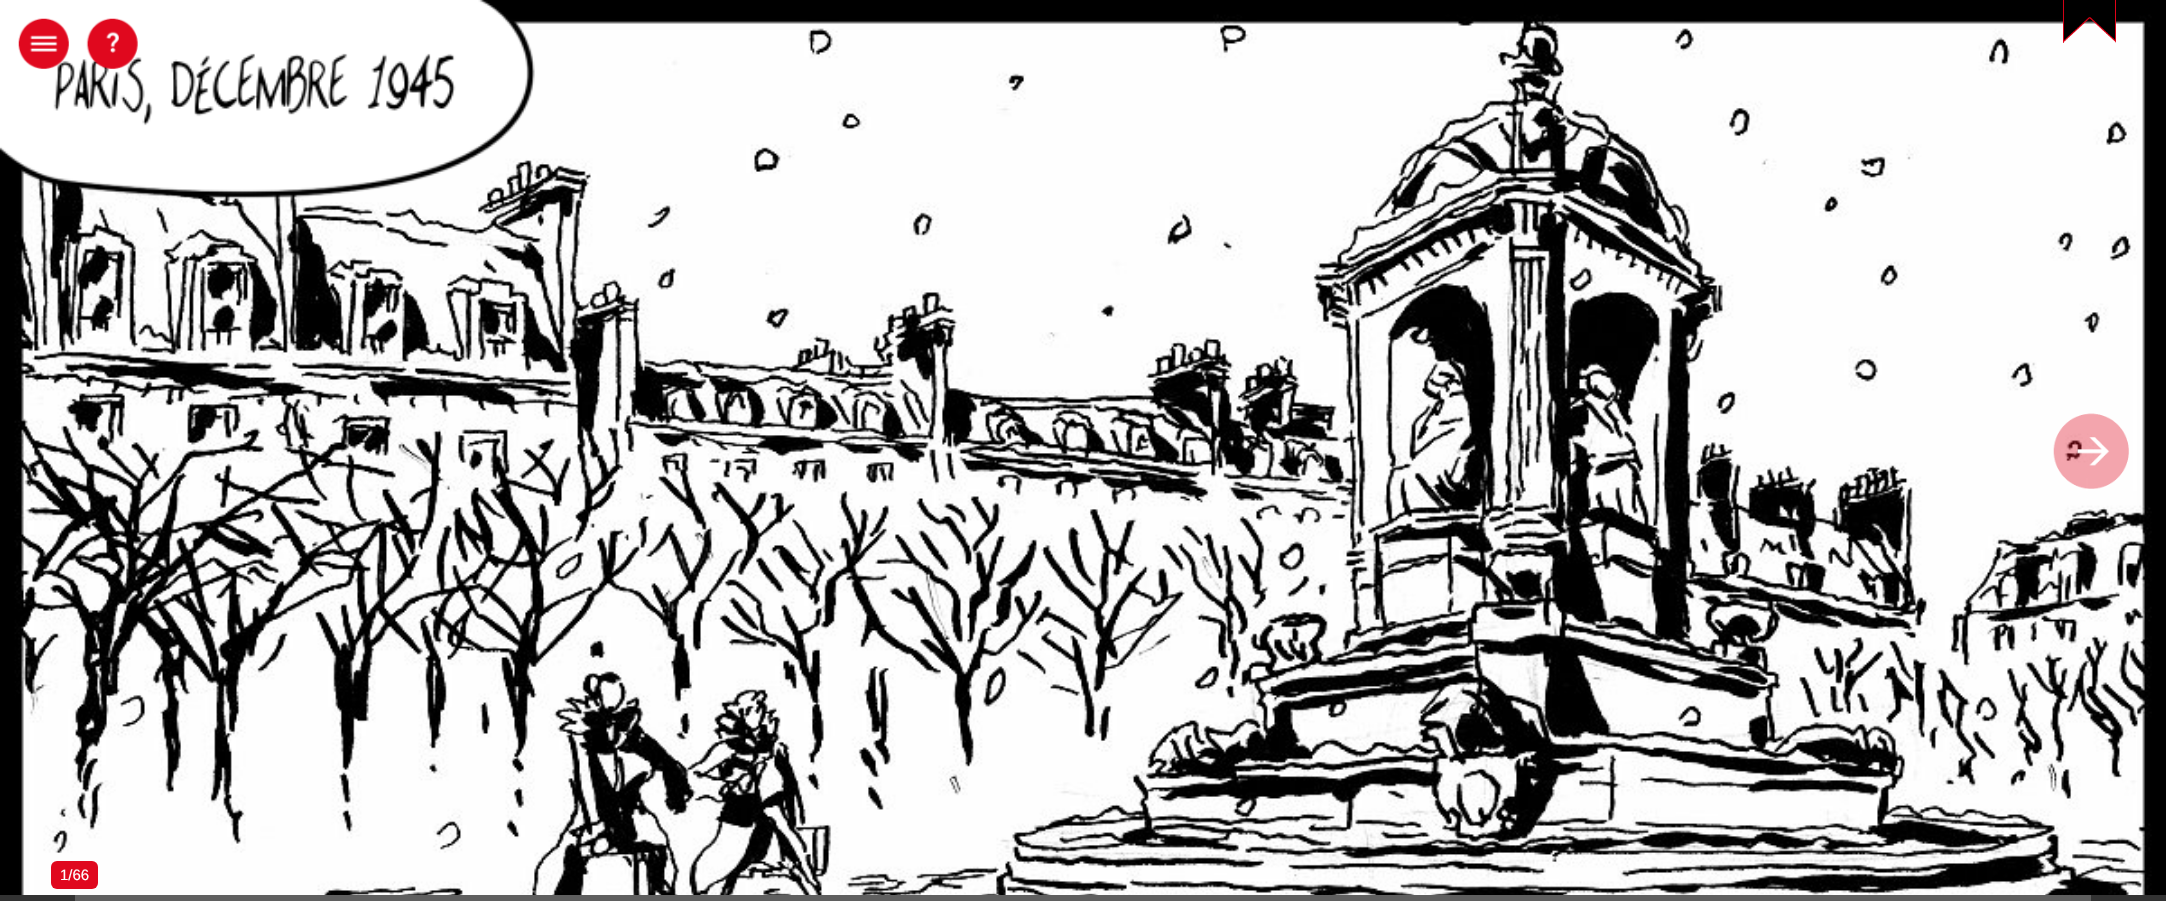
#include "include/core/SkBlurTypes.h"
#include "include/core/SkCanvas.h"
#include "include/core/SkData.h"
#include "include/core/SkFont.h"
#include "include/core/SkFontMgr.h"
#include "include/core/SkImage.h"
#include "include/core/SkMaskFilter.h"
#include "include/core/SkPaint.h"
#include "include/core/SkPathBuilder.h"
#include "include/core/SkTextBlob.h"
#include "include/effects/SkDashPathEffect.h"
#include "include/effects/SkGradientShader.h"
#include "include/utils/SkParsePath.h"

extern sk_sp<SkFontMgr> fontMgr;

void draw(SkCanvas* canvas) {
    SkPaint p;
    p.setAntiAlias(true);
    auto font = [&](const char* family, int weight, float size, bool italic = false) {
        SkFontStyle style(weight, SkFontStyle::kNormal_Width,
            italic ? SkFontStyle::kItalic_Slant : SkFontStyle::kUpright_Slant);
        SkFont result(fontMgr->matchFamilyStyle(family, style), size);
        result.setSubpixel(true);
        return result;
    };
    auto drawPhoto = [&](const char* path, float l, float t, float r, float b) {
        auto image = SkImages::DeferredFromEncodedData(SkData::MakeFromFileName(path));
        canvas->drawImageRect(image, SkRect::MakeLTRB(l, t, r, b), SkSamplingOptions());
    };
    canvas->clear(0xFF000000);
    drawPhoto("media/2.png", 14, 14, 2152, 895);
    drawPhoto("media/1.png", 0, 0, 535, 199);
    drawPhoto("media/3.png", 18, 18, 69, 69);
    drawPhoto("media/4.png", 86, 18, 138, 69);
    drawPhoto("media/5.png", 2063, 0, 2116, 43);
    drawPhoto("media/6.png", 2053, 413, 2129, 489);
    p.setColor(0xFF333333);
    canvas->drawRect(SkRect::MakeLTRB(0, 895, 2166, 901), p);
    p.setColor(0xFF5F5F5F);
    canvas->drawRect(SkRect::MakeLTRB(75, 895, 2091, 901), p);
    p.setColor(0xFFE0081E);
    canvas->drawRoundRect(SkRect::MakeLTRB(51, 861, 98, 889), 6, 6, p);
    auto font1 = font("Liberation Sans", 400, 15);
    p.setColor(0xFFFFFFFF);
    canvas->drawString("1/66", 60, 880, font1, p);
}
